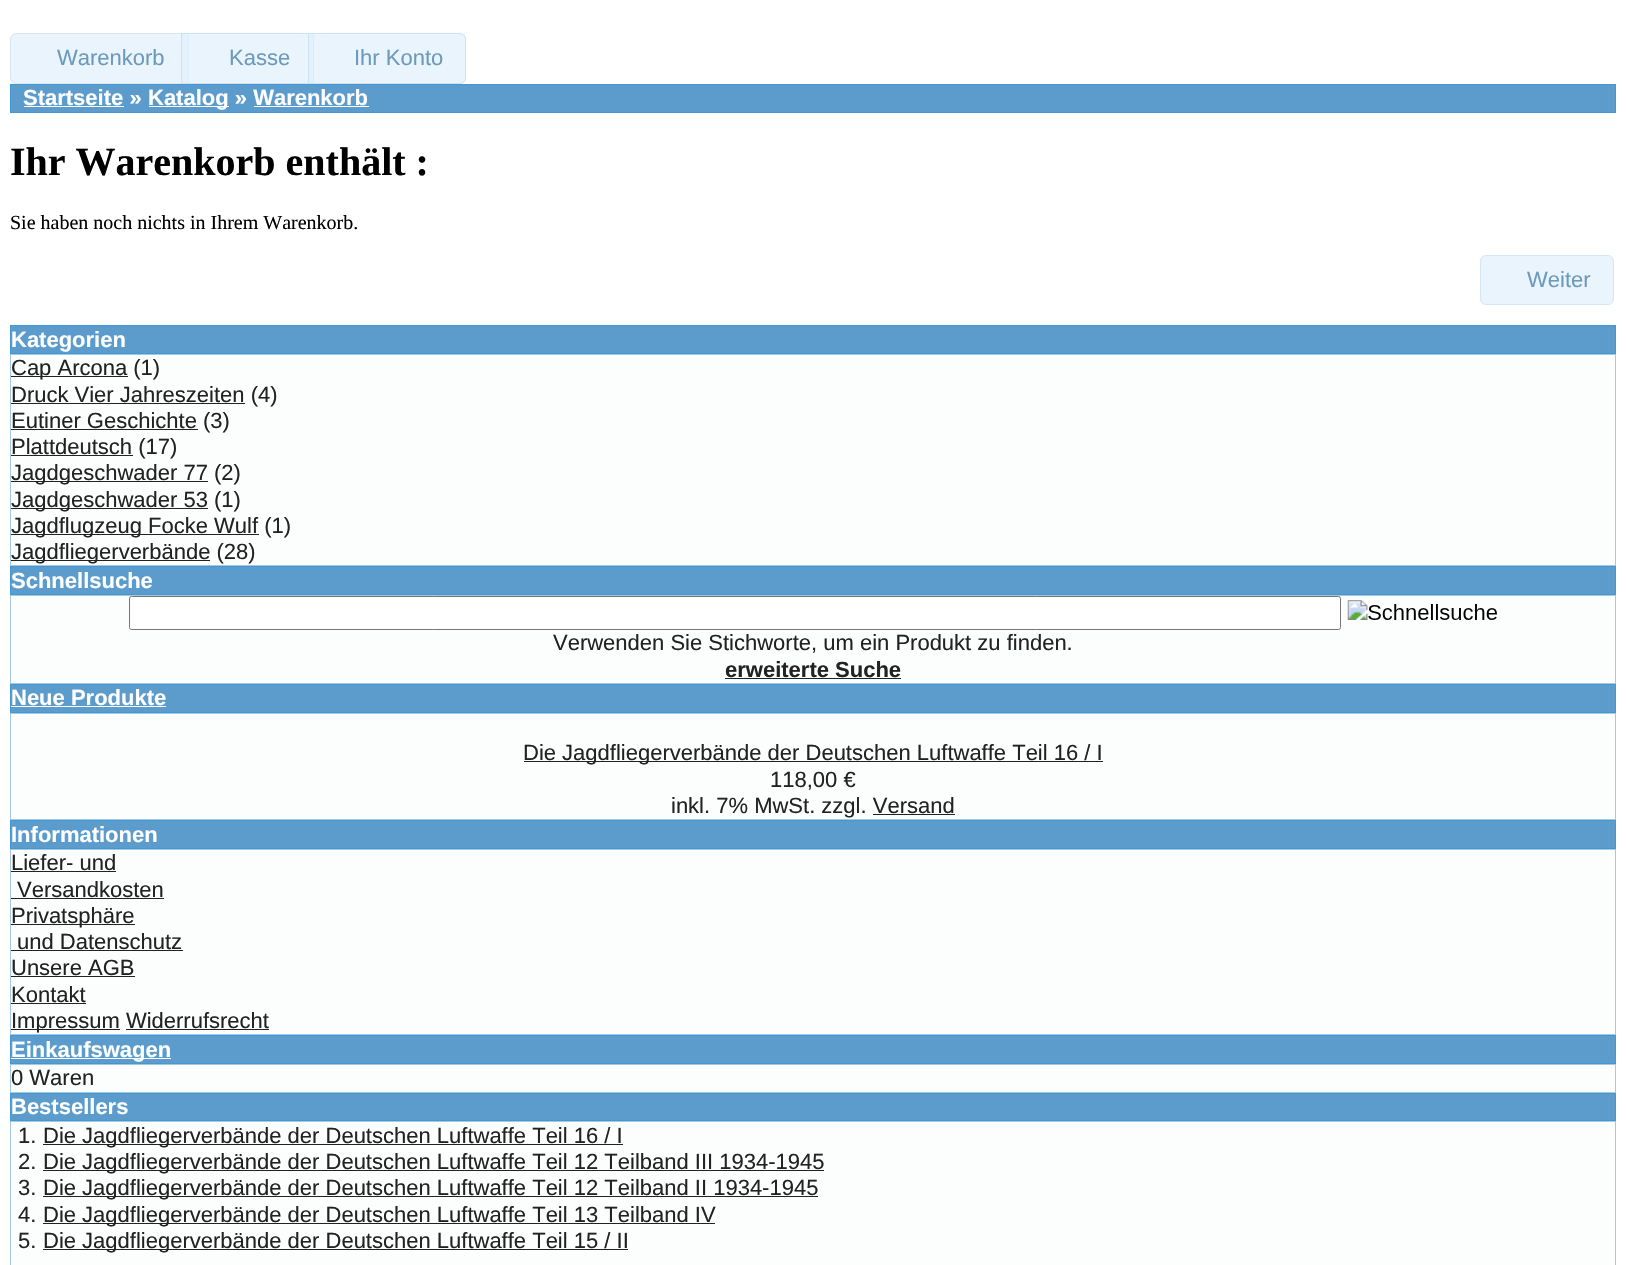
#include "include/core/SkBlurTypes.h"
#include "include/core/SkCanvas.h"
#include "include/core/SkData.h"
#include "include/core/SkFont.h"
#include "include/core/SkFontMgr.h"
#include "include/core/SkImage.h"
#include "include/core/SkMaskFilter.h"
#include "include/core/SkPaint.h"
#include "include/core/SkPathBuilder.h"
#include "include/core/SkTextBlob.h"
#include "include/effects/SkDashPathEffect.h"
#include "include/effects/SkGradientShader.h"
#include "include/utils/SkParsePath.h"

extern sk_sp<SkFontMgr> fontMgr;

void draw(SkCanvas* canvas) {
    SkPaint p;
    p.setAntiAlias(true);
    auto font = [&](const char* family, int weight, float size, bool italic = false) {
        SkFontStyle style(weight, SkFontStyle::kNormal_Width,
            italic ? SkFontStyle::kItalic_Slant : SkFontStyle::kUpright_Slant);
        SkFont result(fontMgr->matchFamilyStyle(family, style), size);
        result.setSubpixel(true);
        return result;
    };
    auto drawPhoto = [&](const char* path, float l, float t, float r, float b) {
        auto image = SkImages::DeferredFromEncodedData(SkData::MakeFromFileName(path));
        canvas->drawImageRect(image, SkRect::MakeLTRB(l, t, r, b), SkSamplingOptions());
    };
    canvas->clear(0xFFFFFFFF);
    p.setColor(0xFFE9F4FD);
    canvas->drawPath(SkPathBuilder().moveTo(16, 33.5f).lineTo(188.5f, 33.5f).lineTo(188.5f, 83.5f).lineTo(16, 83.5f).cubicTo(13, 83.5f, 10.5f, 81, 10.5f, 78).lineTo(10.5f, 39).cubicTo(10.5f, 36, 13, 33.5f, 16, 33.5f).close().detach(), p);
    p.setStyle(SkPaint::kStroke_Style);
    p.setStrokeWidth(1);
    p.setColor(0xFFD6E6F2);
    canvas->drawPath(SkPathBuilder().moveTo(16, 33.5f).lineTo(188.5f, 33.5f).lineTo(188.5f, 83.5f).lineTo(16, 83.5f).cubicTo(13, 83.5f, 10.5f, 81, 10.5f, 78).lineTo(10.5f, 39).cubicTo(10.5f, 36, 13, 33.5f, 16, 33.5f).close().detach(), p);
    auto font1 = font("Liberation Sans", 400, 22);
    p.setStyle(SkPaint::kFill_Style);
    p.setColor(0xFF6D9ABB);
    canvas->drawString("Warenkorb", 57, 65, font1, p);
    p.setColor(0xB3DFEFFC);
    canvas->drawRect(SkRect::MakeLTRB(181, 33, 314, 84), p);
    p.setStyle(SkPaint::kStroke_Style);
    p.setColor(0xB3C5DBEC);
    canvas->drawRect(SkRect::MakeLTRB(181.5f, 33.5f, 313.5f, 83.5f), p);
    p.setStyle(SkPaint::kFill_Style);
    p.setColor(0xFF6D9ABB);
    canvas->drawString("Kasse", 229, 65, font1, p);
    p.setColor(0xB3DFEFFC);
    canvas->drawPath(SkPathBuilder().moveTo(308, 33).lineTo(460, 33).cubicTo(463.5f, 33, 466, 35.5f, 466, 39).lineTo(466, 78).cubicTo(466, 81.5f, 463.5f, 84, 460, 84).lineTo(308, 84).close().detach(), p);
    p.setStyle(SkPaint::kStroke_Style);
    p.setColor(0xB3C5DBEC);
    canvas->drawPath(SkPathBuilder().moveTo(308.5f, 33.5f).lineTo(460, 33.5f).cubicTo(463, 33.5f, 465.5f, 36, 465.5f, 39).lineTo(465.5f, 78).cubicTo(465.5f, 81, 463, 83.5f, 460, 83.5f).lineTo(308.5f, 83.5f).close().detach(), p);
    p.setStyle(SkPaint::kFill_Style);
    p.setColor(0xFF6D9ABB);
    canvas->drawString("Ihr Konto", 354, 65, font1, p);
    p.setColor(0xFF5C9CCC);
    canvas->drawRect(SkRect::MakeLTRB(10.5f, 84.5f, 1615.5f, 112.5f), p);
    p.setStyle(SkPaint::kStroke_Style);
    p.setColor(0xFF4297D7);
    canvas->drawRect(SkRect::MakeLTRB(10.5f, 84.5f, 1615.5f, 112.5f), p);
    auto font2 = font("Liberation Sans", 700, 22);
    p.setStyle(SkPaint::kFill_Style);
    p.setColor(0xFFFFFFFF);
    canvas->drawString("Startseite »", 23, 105, font2, p);
    canvas->drawRect(SkRect::MakeLTRB(24, 106, 124, 107), p);
    canvas->drawRect(SkRect::MakeLTRB(149, 106, 229, 107), p);
    canvas->drawString("Katalog » Warenkorb", 148, 105, font2, p);
    canvas->drawRect(SkRect::MakeLTRB(254, 106, 369, 107), p);
    auto font3 = font("Liberation Serif", 700, 40);
    p.setColor(0xFF000000);
    canvas->drawString("Ihr Warenkorb enthält :", 10, 175, font3, p);
    auto font4 = font("Liberation Serif", 400, 20);
    canvas->drawString("Sie haben noch nichts in Ihrem Warenkorb.", 10, 229, font4, p);
    p.setColor(0xFFE9F4FD);
    canvas->drawRoundRect(SkRect::MakeLTRB(1480.5f, 255.5f, 1613.5f, 304.5f), 5.5f, 5.5f, p);
    p.setStyle(SkPaint::kStroke_Style);
    p.setColor(0xFFD6E6F2);
    canvas->drawRoundRect(SkRect::MakeLTRB(1480.5f, 255.5f, 1613.5f, 304.5f), 5.5f, 5.5f, p);
    p.setStyle(SkPaint::kFill_Style);
    p.setColor(0xFF6D9ABB);
    canvas->drawString("Weiter", 1527, 287, font1, p);
    p.setColor(0xFF5C9CCC);
    canvas->drawRect(SkRect::MakeLTRB(10.5f, 325.5f, 1615.5f, 353.5f), p);
    p.setStyle(SkPaint::kStroke_Style);
    p.setColor(0xFF4297D7);
    canvas->drawRect(SkRect::MakeLTRB(10.5f, 325.5f, 1615.5f, 353.5f), p);
    p.setStyle(SkPaint::kFill_Style);
    p.setColor(0xFFFFFFFF);
    canvas->drawString("Kategorien", 11, 347, font2, p);
    p.setColor(0xFFFCFDFD);
    canvas->drawRect(SkRect::MakeLTRB(10.5f, 354.5f, 1615.5f, 565.5f), p);
    p.setStyle(SkPaint::kStroke_Style);
    p.setColor(0xFFA6C9E2);
    canvas->drawRect(SkRect::MakeLTRB(10.5f, 354.5f, 1615.5f, 565.5f), p);
    p.setStyle(SkPaint::kFill_Style);
    p.setColor(0xFF222222);
    canvas->drawRect(SkRect::MakeLTRB(11, 376, 128, 377), p);
    canvas->drawString("Cap Arcona (1)", 11, 375, font1, p);
    canvas->drawRect(SkRect::MakeLTRB(11, 403, 245, 404), p);
    canvas->drawString("Druck Vier Jahreszeiten (4)", 11, 402, font1, p);
    canvas->drawRect(SkRect::MakeLTRB(11, 429, 198, 430), p);
    canvas->drawString("Eutiner Geschichte (3)", 11, 428, font1, p);
    canvas->drawRect(SkRect::MakeLTRB(11, 455, 133, 456), p);
    canvas->drawString("Plattdeutsch (17)", 11, 454, font1, p);
    canvas->drawRect(SkRect::MakeLTRB(11, 481, 208, 482), p);
    canvas->drawString("Jagdgeschwader 77 (2)", 11, 480, font1, p);
    canvas->drawRect(SkRect::MakeLTRB(11, 508, 208, 509), p);
    canvas->drawString("Jagdgeschwader 53 (1)", 11, 507, font1, p);
    canvas->drawRect(SkRect::MakeLTRB(11, 534, 259, 535), p);
    canvas->drawString("Jagdflugzeug Focke Wulf (1)", 11, 533, font1, p);
    canvas->drawRect(SkRect::MakeLTRB(11, 560, 210, 561), p);
    canvas->drawString("Jagdfliegerverbände (28)", 11, 559, font1, p);
    p.setColor(0xFF5C9CCC);
    canvas->drawRect(SkRect::MakeLTRB(10.5f, 566.5f, 1615.5f, 594.5f), p);
    p.setStyle(SkPaint::kStroke_Style);
    p.setColor(0xFF4297D7);
    canvas->drawRect(SkRect::MakeLTRB(10.5f, 566.5f, 1615.5f, 594.5f), p);
    p.setStyle(SkPaint::kFill_Style);
    p.setColor(0xFFFFFFFF);
    canvas->drawString("Schnellsuche", 11, 588, font2, p);
    p.setColor(0xFFFCFDFD);
    canvas->drawRect(SkRect::MakeLTRB(10.5f, 595.5f, 1615.5f, 683.5f), p);
    p.setStyle(SkPaint::kStroke_Style);
    p.setColor(0xFFA6C9E2);
    canvas->drawRect(SkRect::MakeLTRB(10.5f, 595.5f, 1615.5f, 683.5f), p);
    p.setStyle(SkPaint::kFill_Style);
    p.setColor(0xFFFFFFFF);
    canvas->drawRoundRect(SkRect::MakeLTRB(129.5f, 596.5f, 1340.5f, 629.5f), 2, 2, p);
    p.setStyle(SkPaint::kStroke_Style);
    p.setColor(0xFF767676);
    canvas->drawRoundRect(SkRect::MakeLTRB(129.5f, 596.5f, 1340.5f, 629.5f), 2, 2, p);
    drawPhoto("media/1.png", 1347, 600, 1497, 620);
    p.setStyle(SkPaint::kFill_Style);
    p.setColor(0xFF222222);
    canvas->drawString("Verwenden Sie Stichworte, um ein Produkt zu finden.", 553, 650, font1, p);
    canvas->drawString("erweiterte Suche", 725, 677, font2, p);
    canvas->drawRect(SkRect::MakeLTRB(725, 678, 901, 679), p);
    p.setColor(0xFF5C9CCC);
    canvas->drawRect(SkRect::MakeLTRB(10.5f, 684.5f, 1615.5f, 712.5f), p);
    p.setStyle(SkPaint::kStroke_Style);
    p.setColor(0xFF4297D7);
    canvas->drawRect(SkRect::MakeLTRB(10.5f, 684.5f, 1615.5f, 712.5f), p);
    p.setStyle(SkPaint::kFill_Style);
    p.setColor(0xFFFFFFFF);
    canvas->drawString("Neue Produkte", 11, 705, font2, p);
    canvas->drawRect(SkRect::MakeLTRB(11, 706, 166, 707), p);
    p.setColor(0xFFFCFDFD);
    canvas->drawRect(SkRect::MakeLTRB(10.5f, 713.5f, 1615.5f, 819.5f), p);
    p.setStyle(SkPaint::kStroke_Style);
    p.setColor(0xFFA6C9E2);
    canvas->drawRect(SkRect::MakeLTRB(10.5f, 713.5f, 1615.5f, 819.5f), p);
    p.setStyle(SkPaint::kFill_Style);
    p.setColor(0xFF222222);
    canvas->drawRect(SkRect::MakeLTRB(524, 761, 1103, 762), p);
    {
        const struct { const char* s; float x, y; } items[] = {
            {"Die Jagdfliegerverbände der Deutschen Luftwaffe Teil 16 / I", 523, 760},
            {"118,00 €", 770, 787},
            {"inkl. 7% MwSt. zzgl. Versand", 671, 813},
        };
        for (auto [s, x, y] : items) {
            canvas->drawString(s, x, y, font1, p);
        }
    }
    canvas->drawRect(SkRect::MakeLTRB(873, 814, 955, 815), p);
    p.setColor(0xFF5C9CCC);
    canvas->drawRect(SkRect::MakeLTRB(10.5f, 820.5f, 1615.5f, 848.5f), p);
    p.setStyle(SkPaint::kStroke_Style);
    p.setColor(0xFF4297D7);
    canvas->drawRect(SkRect::MakeLTRB(10.5f, 820.5f, 1615.5f, 848.5f), p);
    p.setStyle(SkPaint::kFill_Style);
    p.setColor(0xFFFFFFFF);
    canvas->drawString("Informationen", 11, 842, font2, p);
    p.setColor(0xFFFCFDFD);
    canvas->drawRect(SkRect::MakeLTRB(10.5f, 849.5f, 1615.5f, 1034.5f), p);
    p.setStyle(SkPaint::kStroke_Style);
    p.setColor(0xFFA6C9E2);
    canvas->drawRect(SkRect::MakeLTRB(10.5f, 849.5f, 1615.5f, 1034.5f), p);
    p.setStyle(SkPaint::kFill_Style);
    p.setColor(0xFF222222);
    canvas->drawString("Liefer- und", 11, 870, font1, p);
    canvas->drawRect(SkRect::MakeLTRB(11, 871, 116, 872), p);
    canvas->drawString("Versandkosten", 17, 897, font1, p);
    canvas->drawRect(SkRect::MakeLTRB(11, 898, 164, 899), p);
    canvas->drawRect(SkRect::MakeLTRB(11, 924, 135, 925), p);
    canvas->drawString("Privatsphäre", 11, 923, font1, p);
    canvas->drawString("und Datenschutz", 17, 949, font1, p);
    canvas->drawRect(SkRect::MakeLTRB(11, 950, 183, 951), p);
    canvas->drawString("Unsere AGB", 11, 975, font1, p);
    canvas->drawRect(SkRect::MakeLTRB(11, 976, 135, 977), p);
    canvas->drawString("Kontakt", 11, 1002, font1, p);
    canvas->drawRect(SkRect::MakeLTRB(11, 1003, 86, 1004), p);
    canvas->drawRect(SkRect::MakeLTRB(11, 1029, 120, 1030), p);
    canvas->drawString("Impressum Widerrufsrecht", 11, 1028, font1, p);
    canvas->drawRect(SkRect::MakeLTRB(126, 1029, 269, 1030), p);
    p.setColor(0xFF5C9CCC);
    canvas->drawRect(SkRect::MakeLTRB(10.5f, 1035.5f, 1615.5f, 1063.5f), p);
    p.setStyle(SkPaint::kStroke_Style);
    p.setColor(0xFF4297D7);
    canvas->drawRect(SkRect::MakeLTRB(10.5f, 1035.5f, 1615.5f, 1063.5f), p);
    p.setStyle(SkPaint::kFill_Style);
    p.setColor(0xFFFFFFFF);
    canvas->drawRect(SkRect::MakeLTRB(11, 1058, 171, 1059), p);
    canvas->drawString("Einkaufswagen", 11, 1057, font2, p);
    p.setColor(0xFFFCFDFD);
    canvas->drawRect(SkRect::MakeLTRB(10.5f, 1064.5f, 1615.5f, 1092.5f), p);
    p.setStyle(SkPaint::kStroke_Style);
    p.setColor(0xFFA6C9E2);
    canvas->drawRect(SkRect::MakeLTRB(10.5f, 1064.5f, 1615.5f, 1092.5f), p);
    p.setStyle(SkPaint::kFill_Style);
    p.setColor(0xFF222222);
    canvas->drawString("0 Waren", 11, 1085, font1, p);
    p.setColor(0xFF5C9CCC);
    canvas->drawRect(SkRect::MakeLTRB(10.5f, 1093.5f, 1615.5f, 1120.5f), p);
    p.setStyle(SkPaint::kStroke_Style);
    p.setColor(0xFF4297D7);
    canvas->drawRect(SkRect::MakeLTRB(10.5f, 1093.5f, 1615.5f, 1120.5f), p);
    p.setStyle(SkPaint::kFill_Style);
    p.setColor(0xFFFFFFFF);
    canvas->drawString("Bestsellers", 11, 1114, font2, p);
    p.setColor(0xFFFCFDFD);
    canvas->drawRect(SkRect::MakeLTRB(10.5f, 1121.5f, 1615.5f, 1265.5f), p);
    p.setStyle(SkPaint::kStroke_Style);
    p.setColor(0xFFA6C9E2);
    canvas->drawRect(SkRect::MakeLTRB(10.5f, 1121.5f, 1615.5f, 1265.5f), p);
    p.setStyle(SkPaint::kFill_Style);
    p.setColor(0xFF222222);
    canvas->drawString("1.", 18, 1143, font1, p);
    canvas->drawRect(SkRect::MakeLTRB(43, 1144, 623, 1145), p);
    canvas->drawString("Die Jagdfliegerverbände der Deutschen Luftwaffe Teil 16 / I", 43, 1143, font1, p);
    canvas->drawString("2.", 18, 1169, font1, p);
    canvas->drawRect(SkRect::MakeLTRB(43, 1170, 824, 1171), p);
    canvas->drawString("Die Jagdfliegerverbände der Deutschen Luftwaffe Teil 12 Teilband III 1934-1945", 43, 1169, font1, p);
    canvas->drawString("3.", 18, 1195, font1, p);
    canvas->drawRect(SkRect::MakeLTRB(43, 1196, 818, 1197), p);
    canvas->drawString("Die Jagdfliegerverbände der Deutschen Luftwaffe Teil 12 Teilband II 1934-1945", 43, 1195, font1, p);
    canvas->drawString("4.", 18, 1222, font1, p);
    canvas->drawRect(SkRect::MakeLTRB(43, 1223, 715, 1224), p);
    canvas->drawString("Die Jagdfliegerverbände der Deutschen Luftwaffe Teil 13 Teilband IV", 43, 1222, font1, p);
    canvas->drawString("5.", 18, 1248, font1, p);
    canvas->drawRect(SkRect::MakeLTRB(43, 1249, 628, 1250), p);
    canvas->drawString("Die Jagdfliegerverbände der Deutschen Luftwaffe Teil 15 / II", 43, 1248, font1, p);
}
